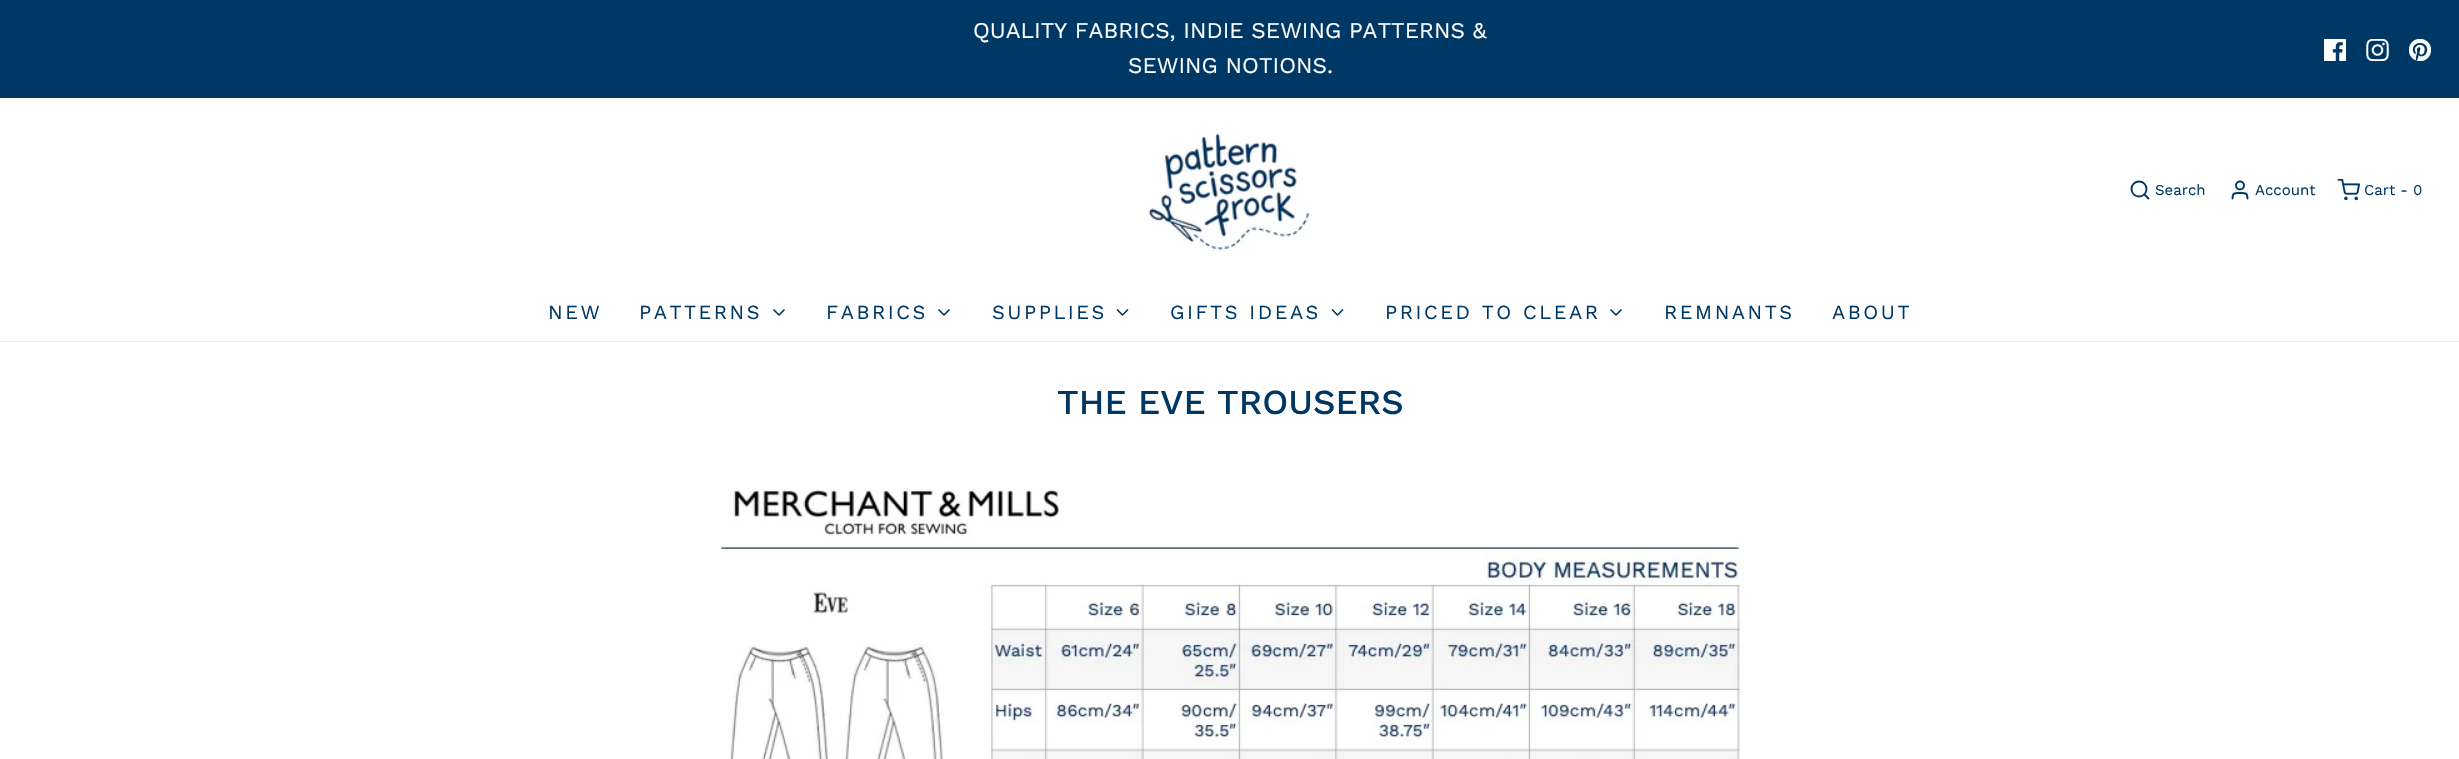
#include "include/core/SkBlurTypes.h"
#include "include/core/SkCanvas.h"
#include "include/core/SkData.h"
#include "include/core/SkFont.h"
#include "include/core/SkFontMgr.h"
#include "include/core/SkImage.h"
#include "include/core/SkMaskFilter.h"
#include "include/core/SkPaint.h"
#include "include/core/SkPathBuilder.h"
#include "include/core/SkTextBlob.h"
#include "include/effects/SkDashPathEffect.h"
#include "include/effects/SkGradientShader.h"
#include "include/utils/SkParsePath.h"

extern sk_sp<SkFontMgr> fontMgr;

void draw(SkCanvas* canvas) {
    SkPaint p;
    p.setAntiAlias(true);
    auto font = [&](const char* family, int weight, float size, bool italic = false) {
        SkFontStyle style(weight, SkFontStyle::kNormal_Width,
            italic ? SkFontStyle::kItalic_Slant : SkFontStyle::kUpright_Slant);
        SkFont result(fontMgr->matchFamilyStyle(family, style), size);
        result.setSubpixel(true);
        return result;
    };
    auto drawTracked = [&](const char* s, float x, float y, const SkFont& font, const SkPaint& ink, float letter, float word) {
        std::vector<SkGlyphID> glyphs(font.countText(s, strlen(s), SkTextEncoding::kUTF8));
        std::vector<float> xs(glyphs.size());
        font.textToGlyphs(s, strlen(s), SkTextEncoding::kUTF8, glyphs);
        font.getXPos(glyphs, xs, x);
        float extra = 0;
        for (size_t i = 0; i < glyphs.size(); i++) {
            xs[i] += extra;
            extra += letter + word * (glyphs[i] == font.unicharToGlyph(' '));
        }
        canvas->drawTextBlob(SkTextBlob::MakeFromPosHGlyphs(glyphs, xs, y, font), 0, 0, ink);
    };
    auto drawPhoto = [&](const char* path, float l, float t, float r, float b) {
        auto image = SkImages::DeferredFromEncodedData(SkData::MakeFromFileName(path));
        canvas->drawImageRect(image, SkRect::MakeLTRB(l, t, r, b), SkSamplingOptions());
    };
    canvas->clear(0xFFFFFFFF);
    p.setColor(0xFF003865);
    canvas->drawRect(SkRect::MakeLTRB(0, 0, 2459, 98), p);
    auto font1 = font("Work Sans", 400, 22.5f);
    p.setColor(0xFFFFFFFF);
    canvas->drawString("QUALITY FABRICS, INDIE SEWING PATTERNS &", 973, 38, font1, p);
    canvas->drawString("SEWING NOTIONS.", 1128, 73, font1, p);
    drawPhoto("media/1.png", 2324, 39, 2346, 61);
    drawPhoto("media/2.png", 2366, 39, 2389, 61);
    drawPhoto("media/3.png", 2409, 39, 2431, 61);
    p.setColor(0xFFE6EBF0);
    canvas->drawRect(SkRect::MakeLTRB(0, 341, 2459, 342), p);
    drawPhoto("media/4.png", 1148, 133, 1311, 253);
    p.setStyle(SkPaint::kStroke_Style);
    p.setStrokeWidth(1.9f);
    p.setColor(0xFF003865);
    canvas->drawCircle(2139, 189, 7.5f, p);
    p.setStrokeCap(SkPaint::kRound_Cap);
    p.setStrokeJoin(SkPaint::kRound_Join);
    canvas->drawPath(SkPathBuilder().moveTo(2148.5f, 198.5f).lineTo(2144.5f, 194.5f).detach(), p);
    auto font2 = font("Work Sans", 400, 15);
    p.setStyle(SkPaint::kFill_Style);
    canvas->drawString("Search", 2155, 195, font2, p);
    p.setStyle(SkPaint::kStroke_Style);
    canvas->drawPath(SkPathBuilder().moveTo(2247.5f, 198.5f).cubicTo(2247.5f, 192.5f, 2245, 193, 2240, 193).cubicTo(2235, 193, 2232.5f, 192.5f, 2232.5f, 198.5f).detach(), p);
    p.setStrokeCap(SkPaint::kButt_Cap);
    p.setStrokeJoin(SkPaint::kMiter_Join);
    canvas->drawCircle(2240, 185.5f, 4, p);
    p.setStyle(SkPaint::kFill_Style);
    canvas->drawString("Account", 2255, 195, font2, p);
    drawPhoto("media/5.png", 2337, 179, 2360, 201);
    canvas->drawString("Cart - 0", 2364, 195, font2, p);
    auto font3 = font("Work Sans", 400, 20);
    drawTracked("NEW", 548, 319, font3, p, 2.5f, 0);
    drawTracked("PATTERNS", 639, 319, font3, p, 2.5f, 0);
    p.setStyle(SkPaint::kStroke_Style);
    p.setStrokeWidth(1.7f);
    p.setStrokeCap(SkPaint::kRound_Cap);
    p.setStrokeJoin(SkPaint::kRound_Join);
    canvas->drawPath(SkPathBuilder().moveTo(774, 310).lineTo(779, 315).lineTo(784, 310).detach(), p);
    p.setStyle(SkPaint::kFill_Style);
    drawTracked("FABRICS", 826, 319, font3, p, 2.5f, 0);
    p.setStyle(SkPaint::kStroke_Style);
    canvas->drawPath(SkPathBuilder().moveTo(939, 310).lineTo(944, 315).lineTo(949, 310).detach(), p);
    p.setStyle(SkPaint::kFill_Style);
    drawTracked("SUPPLIES", 992, 319, font3, p, 2.5f, 0);
    p.setStyle(SkPaint::kStroke_Style);
    canvas->drawPath(SkPathBuilder().moveTo(1117.5f, 310).lineTo(1122.5f, 315).lineTo(1127.5f, 310).detach(), p);
    p.setStyle(SkPaint::kFill_Style);
    drawTracked("GIFTS IDEAS", 1170, 319, font3, p, 2.5f, 0);
    p.setStyle(SkPaint::kStroke_Style);
    canvas->drawPath(SkPathBuilder().moveTo(1332.5f, 310).lineTo(1337.5f, 315).lineTo(1342.5f, 310).detach(), p);
    p.setStyle(SkPaint::kFill_Style);
    drawTracked("PRICED TO CLEAR", 1385, 319, font3, p, 2.5f, 0);
    p.setStyle(SkPaint::kStroke_Style);
    canvas->drawPath(SkPathBuilder().moveTo(1611, 310).lineTo(1616, 315).lineTo(1621, 310).detach(), p);
    p.setStyle(SkPaint::kFill_Style);
    drawTracked("REMNANTS", 1664, 319, font3, p, 2.5f, 0);
    drawTracked("ABOUT", 1832, 319, font3, p, 2.5f, 0);
    auto font4 = font("Work Sans", 500, 35);
    canvas->drawString("THE EVE TROUSERS", 1057, 414, font4, p);
    drawPhoto("media/6.png", 720, 489, 1744, 759);
}
